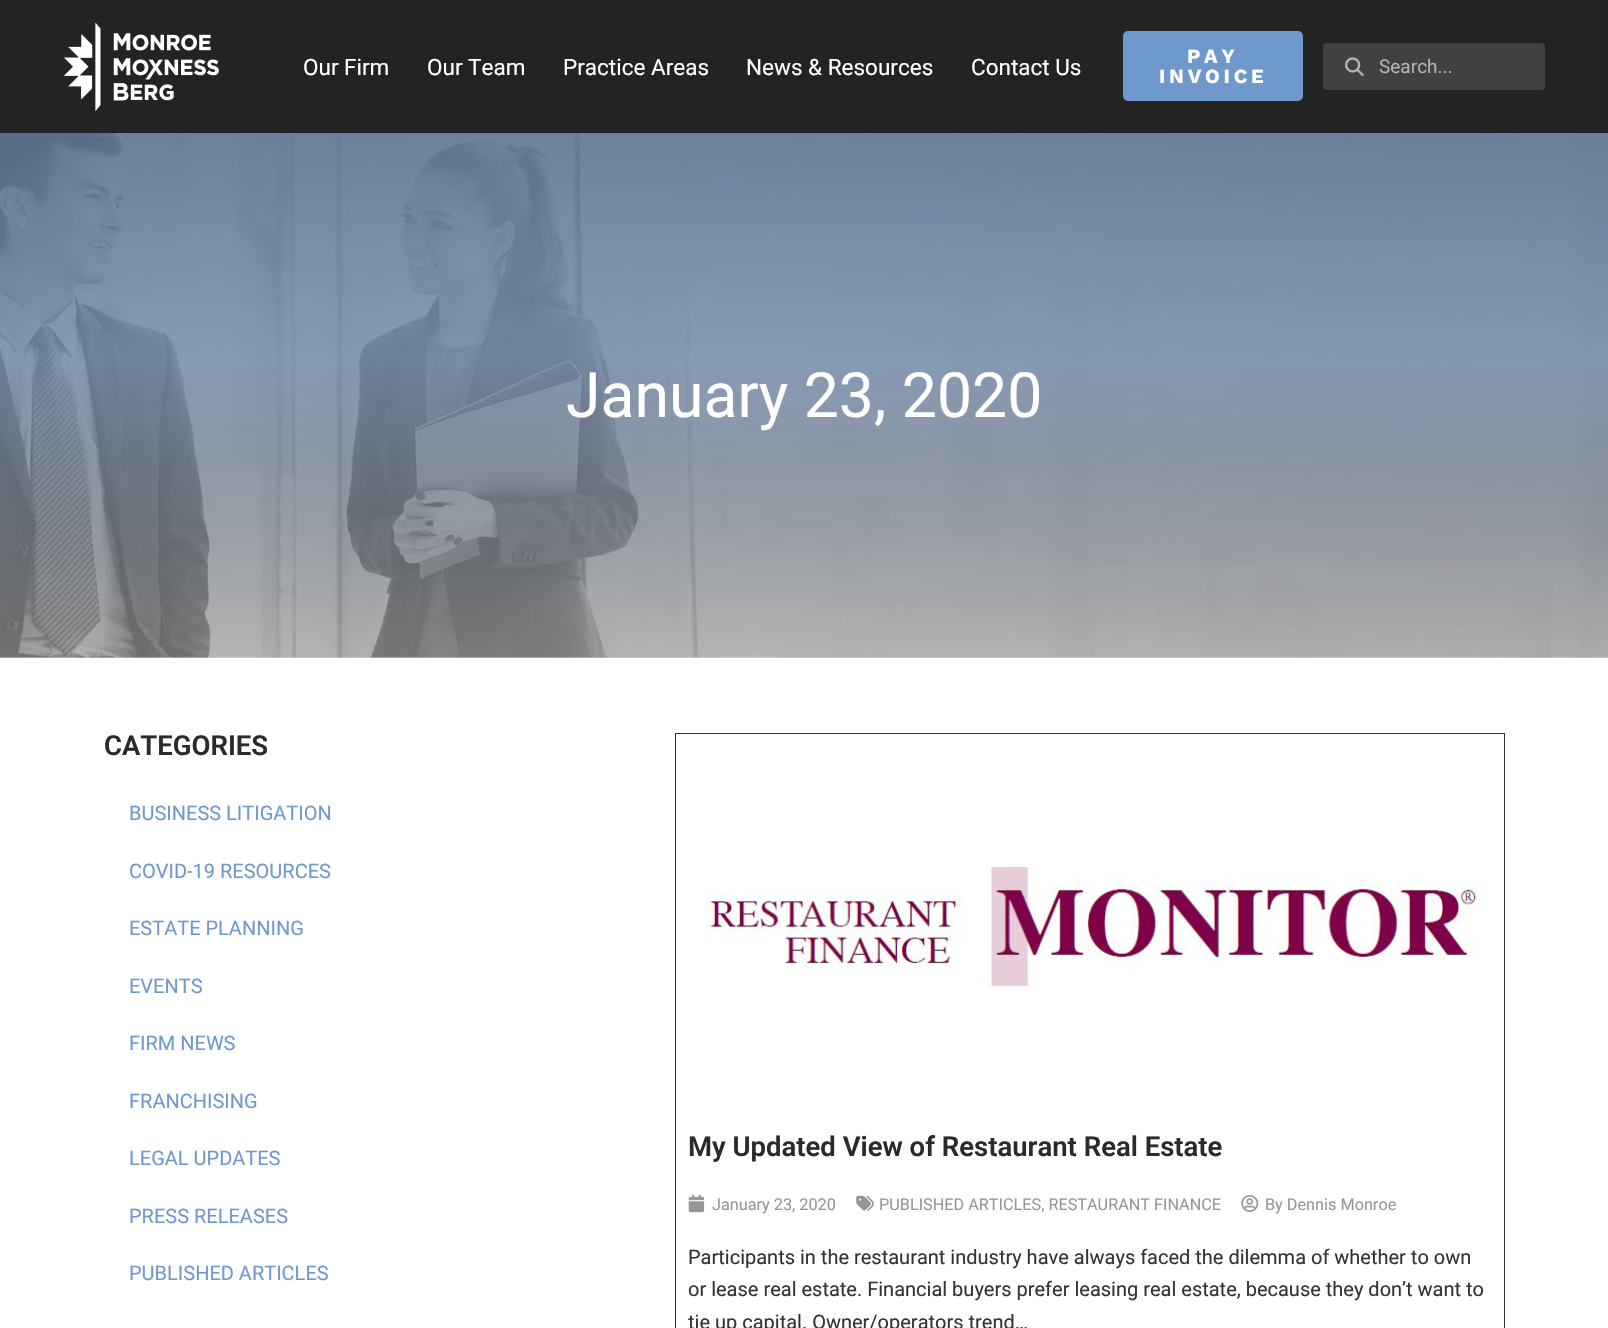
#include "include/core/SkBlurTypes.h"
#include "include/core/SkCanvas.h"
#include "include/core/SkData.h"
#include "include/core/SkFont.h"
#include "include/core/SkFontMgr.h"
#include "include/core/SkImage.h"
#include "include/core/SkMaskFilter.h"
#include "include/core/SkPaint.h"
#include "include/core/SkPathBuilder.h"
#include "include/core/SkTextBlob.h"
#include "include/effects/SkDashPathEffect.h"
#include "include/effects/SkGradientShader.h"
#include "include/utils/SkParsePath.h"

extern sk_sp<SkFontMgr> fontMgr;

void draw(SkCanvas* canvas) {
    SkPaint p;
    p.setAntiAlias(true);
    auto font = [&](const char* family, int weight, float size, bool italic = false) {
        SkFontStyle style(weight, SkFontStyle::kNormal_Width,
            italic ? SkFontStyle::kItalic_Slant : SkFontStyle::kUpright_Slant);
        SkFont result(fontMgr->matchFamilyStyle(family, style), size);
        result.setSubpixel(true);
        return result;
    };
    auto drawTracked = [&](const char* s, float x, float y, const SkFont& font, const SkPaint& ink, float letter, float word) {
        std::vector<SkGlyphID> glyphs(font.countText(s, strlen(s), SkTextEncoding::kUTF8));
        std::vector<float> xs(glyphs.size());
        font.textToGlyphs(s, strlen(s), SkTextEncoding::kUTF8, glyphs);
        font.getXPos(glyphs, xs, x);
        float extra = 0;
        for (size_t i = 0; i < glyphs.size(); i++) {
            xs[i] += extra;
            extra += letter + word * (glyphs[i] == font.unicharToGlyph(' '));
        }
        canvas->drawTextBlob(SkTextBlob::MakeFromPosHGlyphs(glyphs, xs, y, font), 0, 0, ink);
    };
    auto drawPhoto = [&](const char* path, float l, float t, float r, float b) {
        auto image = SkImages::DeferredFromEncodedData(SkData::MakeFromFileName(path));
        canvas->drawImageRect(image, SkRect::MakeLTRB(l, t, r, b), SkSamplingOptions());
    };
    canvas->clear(0xFFFFFFFF);
    p.setColor(0xFF232323);
    canvas->drawRect(SkRect::MakeLTRB(0, 0, 1608, 133), p);
    drawPhoto("media/1.png", 64, 23, 219, 111);
    auto font1 = font("Roboto", 400, 22.5f);
    p.setColor(0xFFFFFFFF);
    {
        const struct { const char* s; float x, y; } items[] = {
            {"Our Firm", 303, 75},
            {"Our Team", 427, 75},
            {"Practice Areas", 563, 75},
            {"News & Resources", 746, 75},
            {"Contact Us", 971, 75},
        };
        for (auto [s, x, y] : items) {
            canvas->drawString(s, x, y, font1, p);
        }
    }
    p.setColor(0xFF6F98CD);
    canvas->drawRoundRect(SkRect::MakeLTRB(1123, 31, 1303, 101), 5, 5, p);
    auto font2 = font("Work Sans", 700, 20);
    p.setColor(0xFFFFFFFF);
    drawTracked("PAY", 1187, 63, font2, p, 3.75f, 0);
    drawTracked("INVOICE", 1159, 83, font2, p, 3.75f, 0);
    p.setColor(0xFF414141);
    canvas->drawRoundRect(SkRect::MakeLTRB(1323, 43, 1545, 90), 4, 4, p);
    drawPhoto("media/2.png", 1345, 57, 1364, 77);
    auto font3 = font("Roboto", 400, 19);
    p.setColor(0xFFB3B3B3);
    canvas->drawString("Search...", 1379, 73, font3, p);
    drawPhoto("media/3.png", 0, 133, 1608, 658);
    {
        const SkColor colors[] = {0x806F98CD, 0x332A2A2A};
        const float stops[] = {0.43f, 1};
        const SkPoint ends[] = {{804, 132}, {804, 658}};
        p.setShader(SkGradientShader::MakeLinear(ends, colors, stops, 2, SkTileMode::kClamp));
        p.setAlpha(255);
    }
    canvas->drawRect(SkRect::MakeLTRB(0, 133, 1608, 658), p);
    auto font4 = font("Roboto", 400, 62.5f);
    p.setShader(nullptr);
    p.setColor(0xFFFFFFFF);
    canvas->drawString("January 23, 2020", 566, 417, font4, p);
    auto font5 = font("Roboto", 600, 27.5f);
    p.setColor(0xFF2A2A2A);
    canvas->drawString("CATEGORIES", 104, 755, font5, p);
    auto font6 = font("Roboto", 400, 20);
    p.setColor(0xFF6F98CD);
    {
        const struct { const char* s; float x, y; } items[] = {
            {"BUSINESS LITIGATION", 129, 820},
            {"COVID-19 RESOURCES", 129, 878},
            {"ESTATE PLANNING", 129, 935},
            {"EVENTS", 129, 993},
            {"FIRM NEWS", 129, 1050},
            {"FRANCHISING", 129, 1108},
            {"LEGAL UPDATES", 129, 1165},
            {"PRESS RELEASES", 129, 1223},
            {"PUBLISHED ARTICLES", 129, 1280},
        };
        for (auto [s, x, y] : items) {
            canvas->drawString(s, x, y, font6, p);
        }
    }
    p.setStyle(SkPaint::kStroke_Style);
    p.setStrokeWidth(1);
    p.setColor(0xFF333333);
    canvas->drawRect(SkRect::MakeLTRB(675.5f, 733.5f, 1504.5f, 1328.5f), p);
    drawPhoto("media/4.png", 705, 867, 1477, 988);
    p.setStyle(SkPaint::kFill_Style);
    p.setColor(0xFF2A2A2A);
    canvas->drawString("My Updated View of Restaurant Real Estate", 688, 1156, font5, p);
    drawPhoto("media/5.png", 688, 1194, 705, 1213);
    auto font7 = font("Roboto", 400, 16.25f);
    p.setColor(0xFF969696);
    canvas->drawString("January 23, 2020", 712, 1210, font7, p);
    drawPhoto("media/6.png", 856, 1195, 874, 1211);
    canvas->drawString("PUBLISHED ARTICLES, RESTAURANT FINANCE", 879, 1210, font7, p);
    drawPhoto("media/7.png", 1241, 1195, 1259, 1212);
    canvas->drawString("By Dennis Monroe", 1265, 1210, font7, p);
    p.setColor(0xFF333333);
    {
        const struct { const char* s; float x, y; } items[] = {
            {"Participants in the restaurant industry have always faced the dilemma of whether to own", 688, 1264},
            {"or lease real estate. Financial buyers prefer leasing real estate, because they don’t want to", 688, 1296},
            {"tie up capital. Owner/operators trend…", 688, 1329},
        };
        for (auto [s, x, y] : items) {
            canvas->drawString(s, x, y, font6, p);
        }
    }
}
